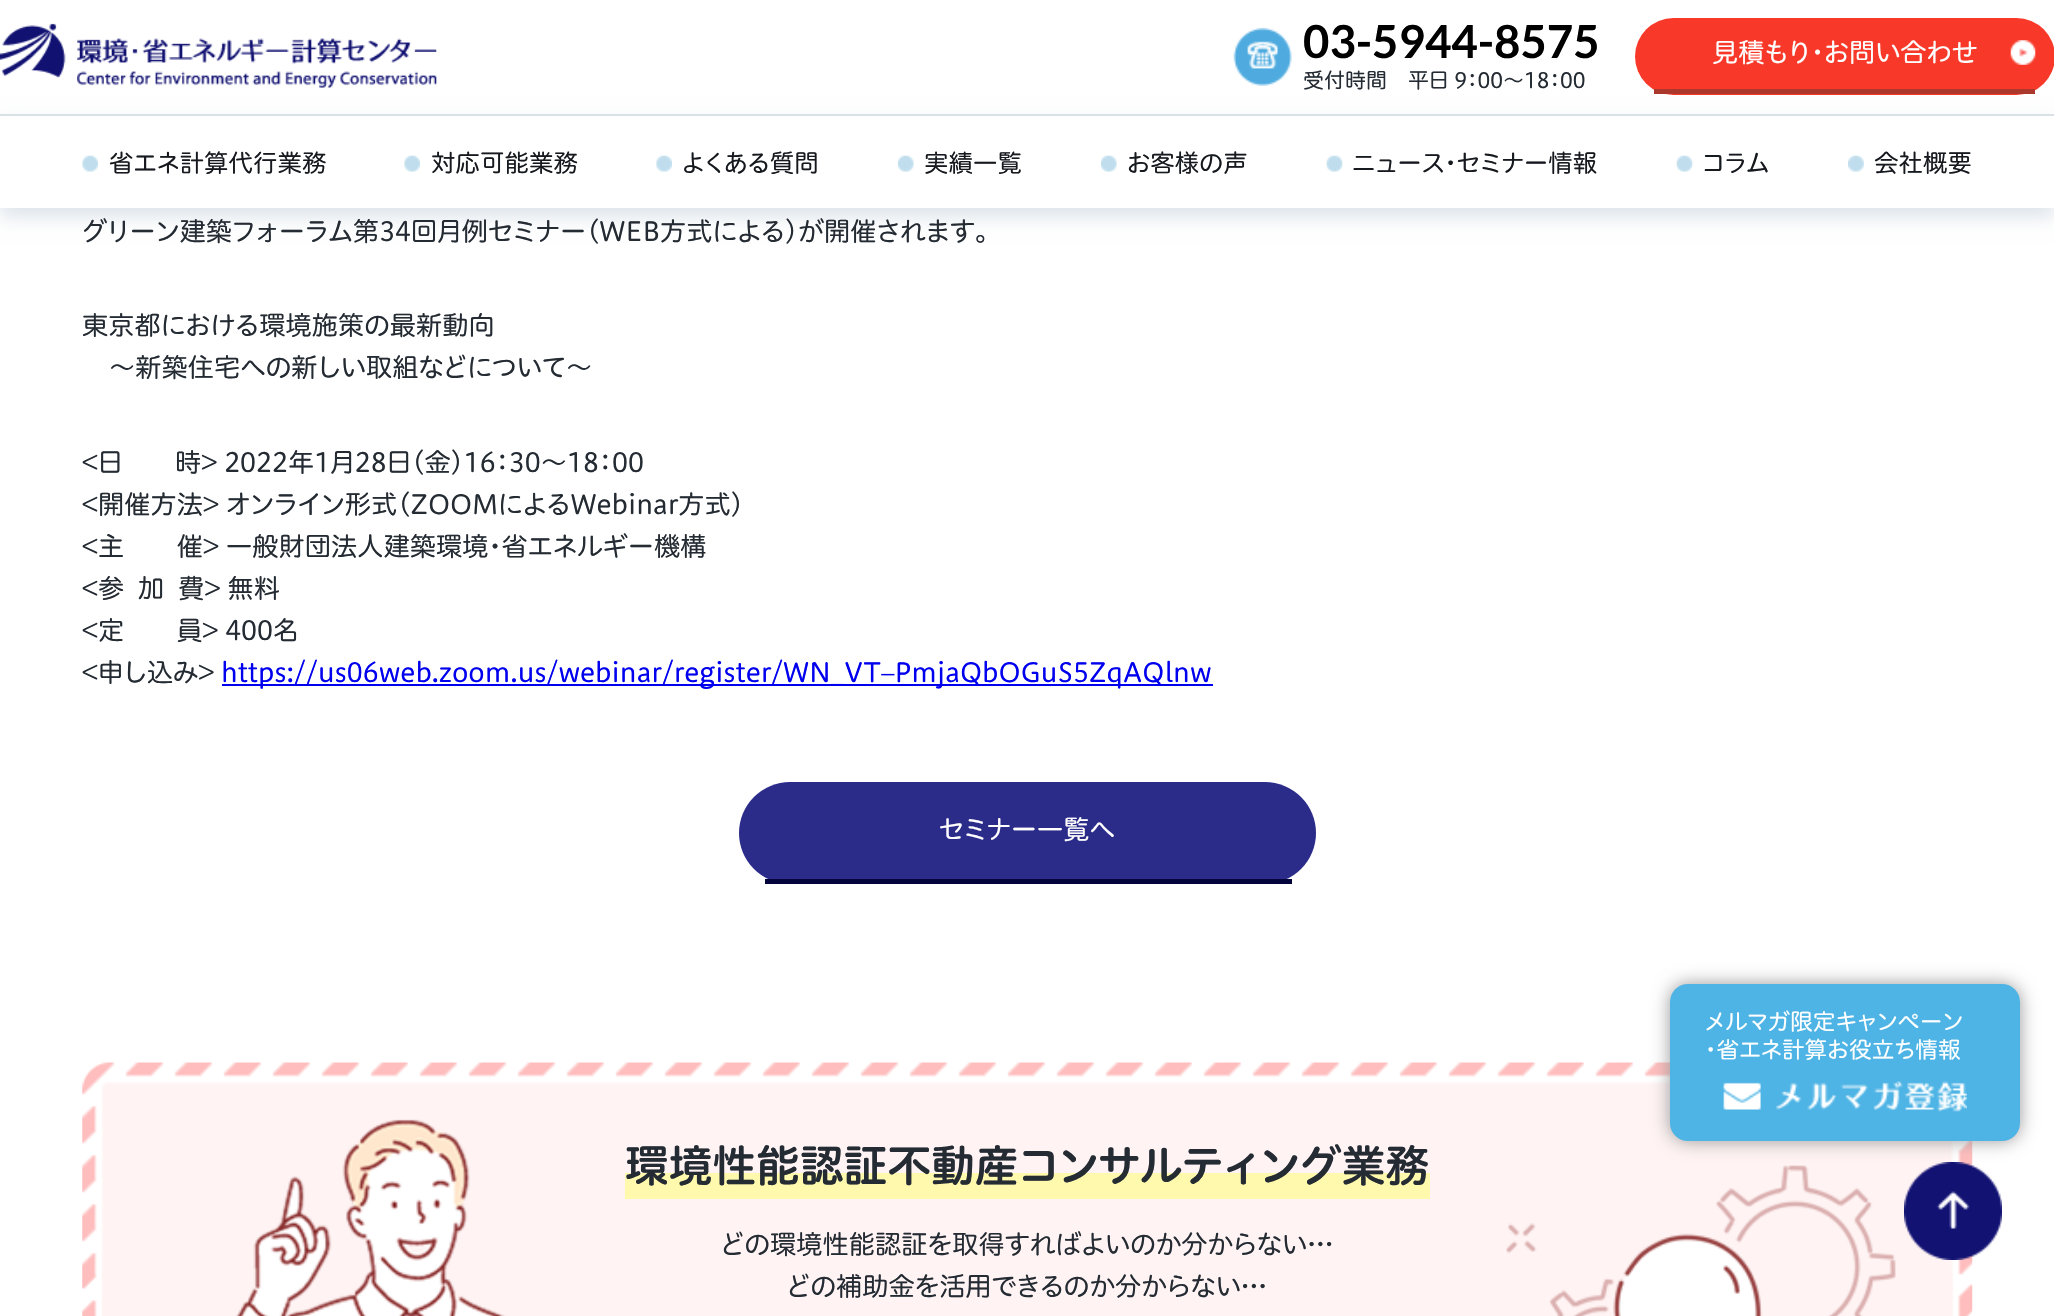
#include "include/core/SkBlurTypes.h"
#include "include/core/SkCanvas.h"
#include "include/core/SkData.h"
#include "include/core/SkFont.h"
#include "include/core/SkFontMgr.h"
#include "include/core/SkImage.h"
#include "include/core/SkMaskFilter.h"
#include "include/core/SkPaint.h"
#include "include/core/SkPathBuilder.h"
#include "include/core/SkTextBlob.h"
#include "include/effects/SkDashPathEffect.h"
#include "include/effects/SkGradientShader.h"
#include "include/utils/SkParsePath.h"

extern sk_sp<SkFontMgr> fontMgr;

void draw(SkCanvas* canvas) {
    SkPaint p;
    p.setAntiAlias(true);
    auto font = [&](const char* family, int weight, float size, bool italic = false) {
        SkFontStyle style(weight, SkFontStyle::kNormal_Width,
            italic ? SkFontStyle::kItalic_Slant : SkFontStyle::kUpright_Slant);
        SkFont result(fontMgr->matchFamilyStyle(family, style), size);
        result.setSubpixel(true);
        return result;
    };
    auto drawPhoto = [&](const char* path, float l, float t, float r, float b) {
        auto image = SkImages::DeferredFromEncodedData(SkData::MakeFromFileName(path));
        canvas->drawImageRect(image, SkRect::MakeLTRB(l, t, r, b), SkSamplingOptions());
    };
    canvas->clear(0xFFFFFFFF);
    drawPhoto("media/1.png", 0, 23, 437, 88);
    drawPhoto("media/2.png", 1233, 28, 1292, 86);
    auto font1 = font("Lato", 700, 45.5f);
    p.setColor(0xFF000000);
    canvas->drawString("03-5944-8575", 1303, 58, font1, p);
    auto font2 = font("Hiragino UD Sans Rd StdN", 400, 21);
    p.setColor(0xFF242B33);
    canvas->drawString("受付時間　平日 9：00～18：00", 1303, 88, font2, p);
    p.setColor(0xFFF83929);
    canvas->drawRoundRect(SkRect::MakeLTRB(1635, 18, 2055, 95), 38.5f, 38.5f, p);
    p.setColor(0xFFAC372D);
    canvas->drawRect(SkRect::MakeLTRB(1654, 89, 2035, 94), p);
    drawPhoto("media/3.png", 2010, 40, 2036, 65);
    auto font3 = font("Hiragino UD Sans Rd StdN", 400, 26.25f);
    p.setColor(0xFFFFFFFF);
    canvas->drawString("見積もり・お問い合わせ", 1712, 62, font3, p);
    canvas->save();
    canvas->clipPath(SkPathBuilder(SkPathFillType::kEvenOdd).moveTo(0, 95).lineTo(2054, 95).lineTo(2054, 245).lineTo(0, 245).close().moveTo(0, 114).lineTo(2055, 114).lineTo(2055, 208).lineTo(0, 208).close().detach(), true);
    p.setColor(0xFFDDE4EB);
    p.setMaskFilter(SkMaskFilter::MakeBlur(kNormal_SkBlurStyle, 9));
    canvas->drawRect(SkRect::MakeLTRB(0, 123, 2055, 217), p);
    p.setMaskFilter(nullptr);
    canvas->restore();
    p.setColor(0xFFDAE1E5);
    canvas->drawRect(SkRect::MakeLTRB(0, 114, 2054, 116), p);
    drawPhoto("media/4.png", 82, 155, 98, 172);
    auto font4 = font("Hiragino UD Sans Rd StdN", 400, 24.5f);
    p.setColor(0xFF161A1F);
    canvas->drawString("省エネ計算代行業務", 109, 172, font4, p);
    drawPhoto("media/5.png", 404, 155, 420, 172);
    canvas->drawString("対応可能業務", 431, 172, font4, p);
    drawPhoto("media/4.png", 656, 155, 672, 172);
    canvas->drawString("よくある質問", 682, 172, font4, p);
    drawPhoto("media/6.png", 897, 155, 914, 172);
    canvas->drawString("実績一覧", 924, 172, font4, p);
    drawPhoto("media/6.png", 1100, 155, 1117, 172);
    canvas->drawString("お客様の声", 1127, 172, font4, p);
    drawPhoto("media/7.png", 1326, 155, 1343, 172);
    canvas->drawString("ニュース・セミナー情報", 1352, 172, font4, p);
    drawPhoto("media/8.png", 1676, 155, 1693, 172);
    canvas->drawString("コラム", 1702, 172, font4, p);
    drawPhoto("media/9.png", 1848, 155, 1864, 172);
    canvas->drawString("会社概要", 1874, 172, font4, p);
    p.setColor(0xFF242B33);
    {
        const struct { const char* s; float x, y; } items[] = {
            {"グリーン建築フォーラム第34回月例セミナー(WEB方式による)が開催されます。", 82, 241},
            {"東京都における環境施策の最新動向", 82, 335},
            {"～新築住宅への新しい取組などについて～", 109, 377},
            {"<日　　時> 2022年1月28日(金)16：30～18：00", 82, 472},
            {"<開催方法> オンライン形式(ZOOMによるWebinar方式)", 82, 514},
            {"<主　　催> 一般財団法人建築環境・省エネルギー機構", 82, 556},
            {"<参  加  費> 無料", 82, 598},
            {"<定　　員> 400名", 82, 640},
            {"<申し込み>", 82, 682},
        };
        for (auto [s, x, y] : items) {
            canvas->drawString(s, x, y, font3, p);
        }
    }
    p.setColor(0xFF0000EE);
    canvas->drawRect(SkRect::MakeLTRB(222, 684, 1213, 686), p);
    canvas->drawString("https://us06web.zoom.us/webinar/register/WN_VT–PmjaQbOGuS5ZqAQlnw", 221, 682, font3, p);
    p.setColor(0xFF2B2B8A);
    canvas->drawRoundRect(SkRect::MakeLTRB(739, 782, 1316, 884), 51, 51, p);
    p.setColor(0xFF04043C);
    canvas->drawRect(SkRect::MakeLTRB(765, 879, 1292, 884), p);
    p.setColor(0xFFFFFFFF);
    canvas->drawString("セミナー一覧へ", 939, 839, font3, p);
    drawPhoto("media/11.png", 82, 1062, 1973, 1316);
    p.setColor(0xFF999999);
    p.setMaskFilter(SkMaskFilter::MakeBlur(kNormal_SkBlurStyle, 9));
    canvas->drawRoundRect(SkRect::MakeLTRB(1670, 984, 2020, 1141), 18, 18, p);
    p.setMaskFilter(nullptr);
    p.setColor(0xFF4EB4E5);
    canvas->drawRoundRect(SkRect::MakeLTRB(1670, 984, 2020, 1141), 18, 18, p);
    auto font5 = font("Hiragino UD Sans Rd StdN", 400, 22.75f);
    p.setColor(0xFFFFFFFF);
    canvas->drawString("メルマガ限定キャンペーン", 1705, 1030, font5, p);
    canvas->drawString("・省エネ計算お役立ち情報", 1705, 1058, font5, p);
    drawPhoto("media/10.png", 1723, 1081, 1967, 1112);
    p.setColor(0xFFFEF9AC);
    canvas->drawRect(SkRect::MakeLTRB(625, 1173, 1430, 1199), p);
    auto font6 = font("Hiragino UD Sans Rd StdN", 600, 43.75f);
    p.setColor(0xFF242B33);
    canvas->drawString("環境性能認証不動産コンサルティング業務", 625, 1182, font6, p);
    canvas->drawString("どの環境性能認証を取得すればよいのか分からない…", 721, 1254, font3, p);
    canvas->drawString("どの補助金を活用できるのか分からない…", 787, 1296, font3, p);
    drawPhoto("media/12.png", 1904, 1162, 2002, 1260);
}
